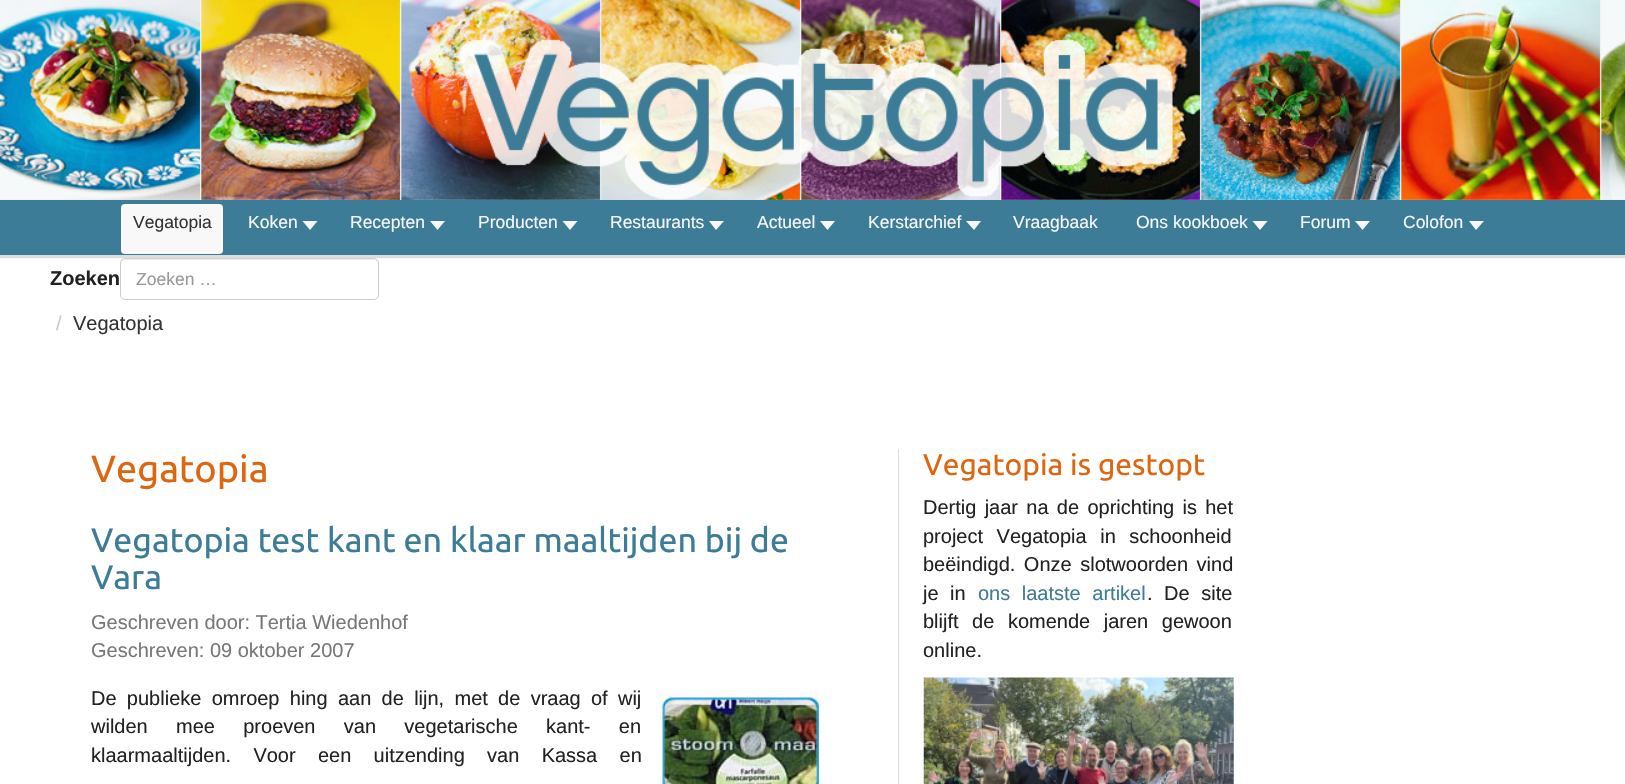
#include "include/core/SkBlurTypes.h"
#include "include/core/SkCanvas.h"
#include "include/core/SkData.h"
#include "include/core/SkFont.h"
#include "include/core/SkFontMgr.h"
#include "include/core/SkImage.h"
#include "include/core/SkMaskFilter.h"
#include "include/core/SkPaint.h"
#include "include/core/SkPathBuilder.h"
#include "include/core/SkTextBlob.h"
#include "include/effects/SkDashPathEffect.h"
#include "include/effects/SkGradientShader.h"
#include "include/utils/SkParsePath.h"

extern sk_sp<SkFontMgr> fontMgr;

void draw(SkCanvas* canvas) {
    SkPaint p;
    p.setAntiAlias(true);
    auto font = [&](const char* family, int weight, float size, bool italic = false) {
        SkFontStyle style(weight, SkFontStyle::kNormal_Width,
            italic ? SkFontStyle::kItalic_Slant : SkFontStyle::kUpright_Slant);
        SkFont result(fontMgr->matchFamilyStyle(family, style), size);
        result.setSubpixel(true);
        return result;
    };
    auto drawTracked = [&](const char* s, float x, float y, const SkFont& font, const SkPaint& ink, float letter, float word) {
        std::vector<SkGlyphID> glyphs(font.countText(s, strlen(s), SkTextEncoding::kUTF8));
        std::vector<float> xs(glyphs.size());
        font.textToGlyphs(s, strlen(s), SkTextEncoding::kUTF8, glyphs);
        font.getXPos(glyphs, xs, x);
        float extra = 0;
        for (size_t i = 0; i < glyphs.size(); i++) {
            xs[i] += extra;
            extra += letter + word * (glyphs[i] == font.unicharToGlyph(' '));
        }
        canvas->drawTextBlob(SkTextBlob::MakeFromPosHGlyphs(glyphs, xs, y, font), 0, 0, ink);
    };
    auto drawPhoto = [&](const char* path, float l, float t, float r, float b) {
        auto image = SkImages::DeferredFromEncodedData(SkData::MakeFromFileName(path));
        canvas->drawImageRect(image, SkRect::MakeLTRB(l, t, r, b), SkSamplingOptions());
    };
    canvas->clear(0xFFFFFFFF);
    drawPhoto("media/1.png", 0, 0, 1625, 200);
    drawPhoto("media/2.png", 459, 38, 1173, 200);
    p.setColor(0xFFECECEC);
    canvas->drawPath(SkPathBuilder().moveTo(125, 260).lineTo(375, 260).lineTo(377, 262).lineTo(378, 264).lineTo(378, 263).cubicTo(378, 261, 376, 259, 374, 259).lineTo(125, 259).cubicTo(123, 259, 121, 261, 121, 263).lineTo(121, 264).cubicTo(121, 262, 123, 260, 125, 260).close().detach(), p);
    p.setStyle(SkPaint::kStroke_Style);
    p.setStrokeWidth(1);
    p.setColor(0xFFCCCCCC);
    canvas->drawRoundRect(SkRect::MakeLTRB(120.5f, 258.5f, 378.5f, 299.5f), 4.5f, 4.5f, p);
    p.setStyle(SkPaint::kFill_Style);
    p.setColor(0xFFDDDDDD);
    p.setMaskFilter(SkMaskFilter::MakeBlur(kNormal_SkBlurStyle, 0.5f));
    canvas->drawRect(SkRect::MakeLTRB(0, 200, 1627, 258), p);
    p.setMaskFilter(nullptr);
    p.setColor(0xFF3C7C96);
    canvas->drawRect(SkRect::MakeLTRB(0, 200, 1625, 255), p);
    p.setColor(0xFFF8F8F8);
    canvas->drawRoundRect(SkRect::MakeLTRB(121, 204, 223, 254), 4, 4, p);
    auto font1 = font("Liberation Sans", 400, 17.5f);
    p.setColor(0xFF333333);
    canvas->drawString("Vegatopia", 133, 228, font1, p);
    p.setColor(0xFFF8F8F8);
    canvas->drawString("Koken", 248, 228, font1, p);
    canvas->drawPath(SkPathBuilder().moveTo(302.5f, 221).lineTo(317.5f, 221).lineTo(310, 230).close().detach(), p);
    canvas->drawString("Recepten", 350, 228, font1, p);
    canvas->drawPath(SkPathBuilder().moveTo(430, 221).lineTo(445, 221).lineTo(437.5f, 230).close().detach(), p);
    canvas->drawString("Producten", 478, 228, font1, p);
    canvas->drawPath(SkPathBuilder().moveTo(562.5f, 221).lineTo(577.5f, 221).lineTo(570, 230).close().detach(), p);
    canvas->drawString("Restaurants", 610, 228, font1, p);
    canvas->drawPath(SkPathBuilder().moveTo(709, 221).lineTo(724, 221).lineTo(716, 230).close().detach(), p);
    canvas->drawString("Actueel", 757, 228, font1, p);
    canvas->drawPath(SkPathBuilder().moveTo(820, 221).lineTo(835, 221).lineTo(827.5f, 230).close().detach(), p);
    canvas->drawString("Kerstarchief", 868, 228, font1, p);
    canvas->drawPath(SkPathBuilder().moveTo(966, 221).lineTo(981, 221).lineTo(974, 230).close().detach(), p);
    canvas->drawString("Vraagbaak", 1013, 228, font1, p);
    canvas->drawString("Ons kookboek", 1136, 228, font1, p);
    canvas->drawPath(SkPathBuilder().moveTo(1252.5f, 221).lineTo(1267.5f, 221).lineTo(1260, 230).close().detach(), p);
    canvas->drawString("Forum", 1300, 228, font1, p);
    canvas->drawPath(SkPathBuilder().moveTo(1355, 221).lineTo(1370, 221).lineTo(1362.5f, 230).close().detach(), p);
    canvas->drawString("Colofon", 1403, 228, font1, p);
    canvas->drawPath(SkPathBuilder().moveTo(1469, 221).lineTo(1484, 221).lineTo(1476, 230).close().detach(), p);
    auto font2 = font("Liberation Sans", 700, 20);
    p.setColor(0xFF222222);
    canvas->drawString("Zoeken", 50, 285, font2, p);
    p.setColor(0xFF999999);
    canvas->drawString("Zoeken …", 136, 285, font1, p);
    auto font3 = font("Liberation Sans", 400, 20);
    p.setColor(0xFFCCCCCC);
    canvas->drawString("/", 56, 330, font3, p);
    p.setColor(0xFF333333);
    canvas->drawString("Vegatopia", 73, 330, font3, p);
    auto font4 = font("Ubuntu", 400, 38);
    p.setColor(0xFFDD6611);
    canvas->drawString("Vegatopia", 91, 482, font4, p);
    auto font5 = font("Ubuntu", 400, 34);
    p.setColor(0xFF3C7C96);
    canvas->drawString("Vegatopia test kant en klaar maaltijden bij de", 91, 552, font5, p);
    canvas->drawString("Vara", 91, 589, font5, p);
    p.setColor(0xFF777777);
    canvas->drawString("Geschreven door: Tertia Wiedenhof", 91, 629, font3, p);
    canvas->drawString("Geschreven: 09 oktober 2007", 91, 657, font3, p);
    p.setColor(0xFF222222);
    drawTracked("De publieke omroep hing aan de lijn, met de vraag of wij", 91, 705, font3, p, 0, 4.75f);
    drawPhoto("media/3.png", 660, 691, 820, 784);
    drawTracked("wilden mee proeven van vegetarische kant- en", 91, 733, font3, p, 0, 22.75f);
    drawTracked("klaarmaaltijden. Voor een uitzending van Kassa en", 91, 762, font3, p, 0, 16.75f);
    p.setColor(0xFFDDDDDD);
    canvas->drawRect(SkRect::MakeLTRB(898, 449, 899, 784), p);
    auto font6 = font("Ubuntu", 400, 30);
    p.setColor(0xFFDD6611);
    canvas->drawString("Vegatopia is gestopt", 923, 475, font6, p);
    p.setColor(0xFF222222);
    drawTracked("Dertig jaar na de oprichting is het", 923, 514, font3, p, 0, 2.75f);
    drawTracked("project Vegatopia in schoonheid", 923, 543, font3, p, 0, 8);
    drawTracked("beëindigd. Onze slotwoorden vind", 923, 571, font3, p, 0, 3);
    drawTracked("je in", 923, 600, font3, p, 0, 6);
    p.setColor(0xFF3C7C96);
    drawTracked("ons laatste artikel", 978, 600, font3, p, 0, 6);
    p.setColor(0xFF222222);
    drawTracked(". De site", 1147, 600, font3, p, 0, 6);
    drawTracked("blijft de komende jaren gewoon", 923, 628, font3, p, 0, 8);
    canvas->drawString("online.", 923, 657, font3, p);
    drawPhoto("media/4.png", 923, 677, 1234, 784);
}
